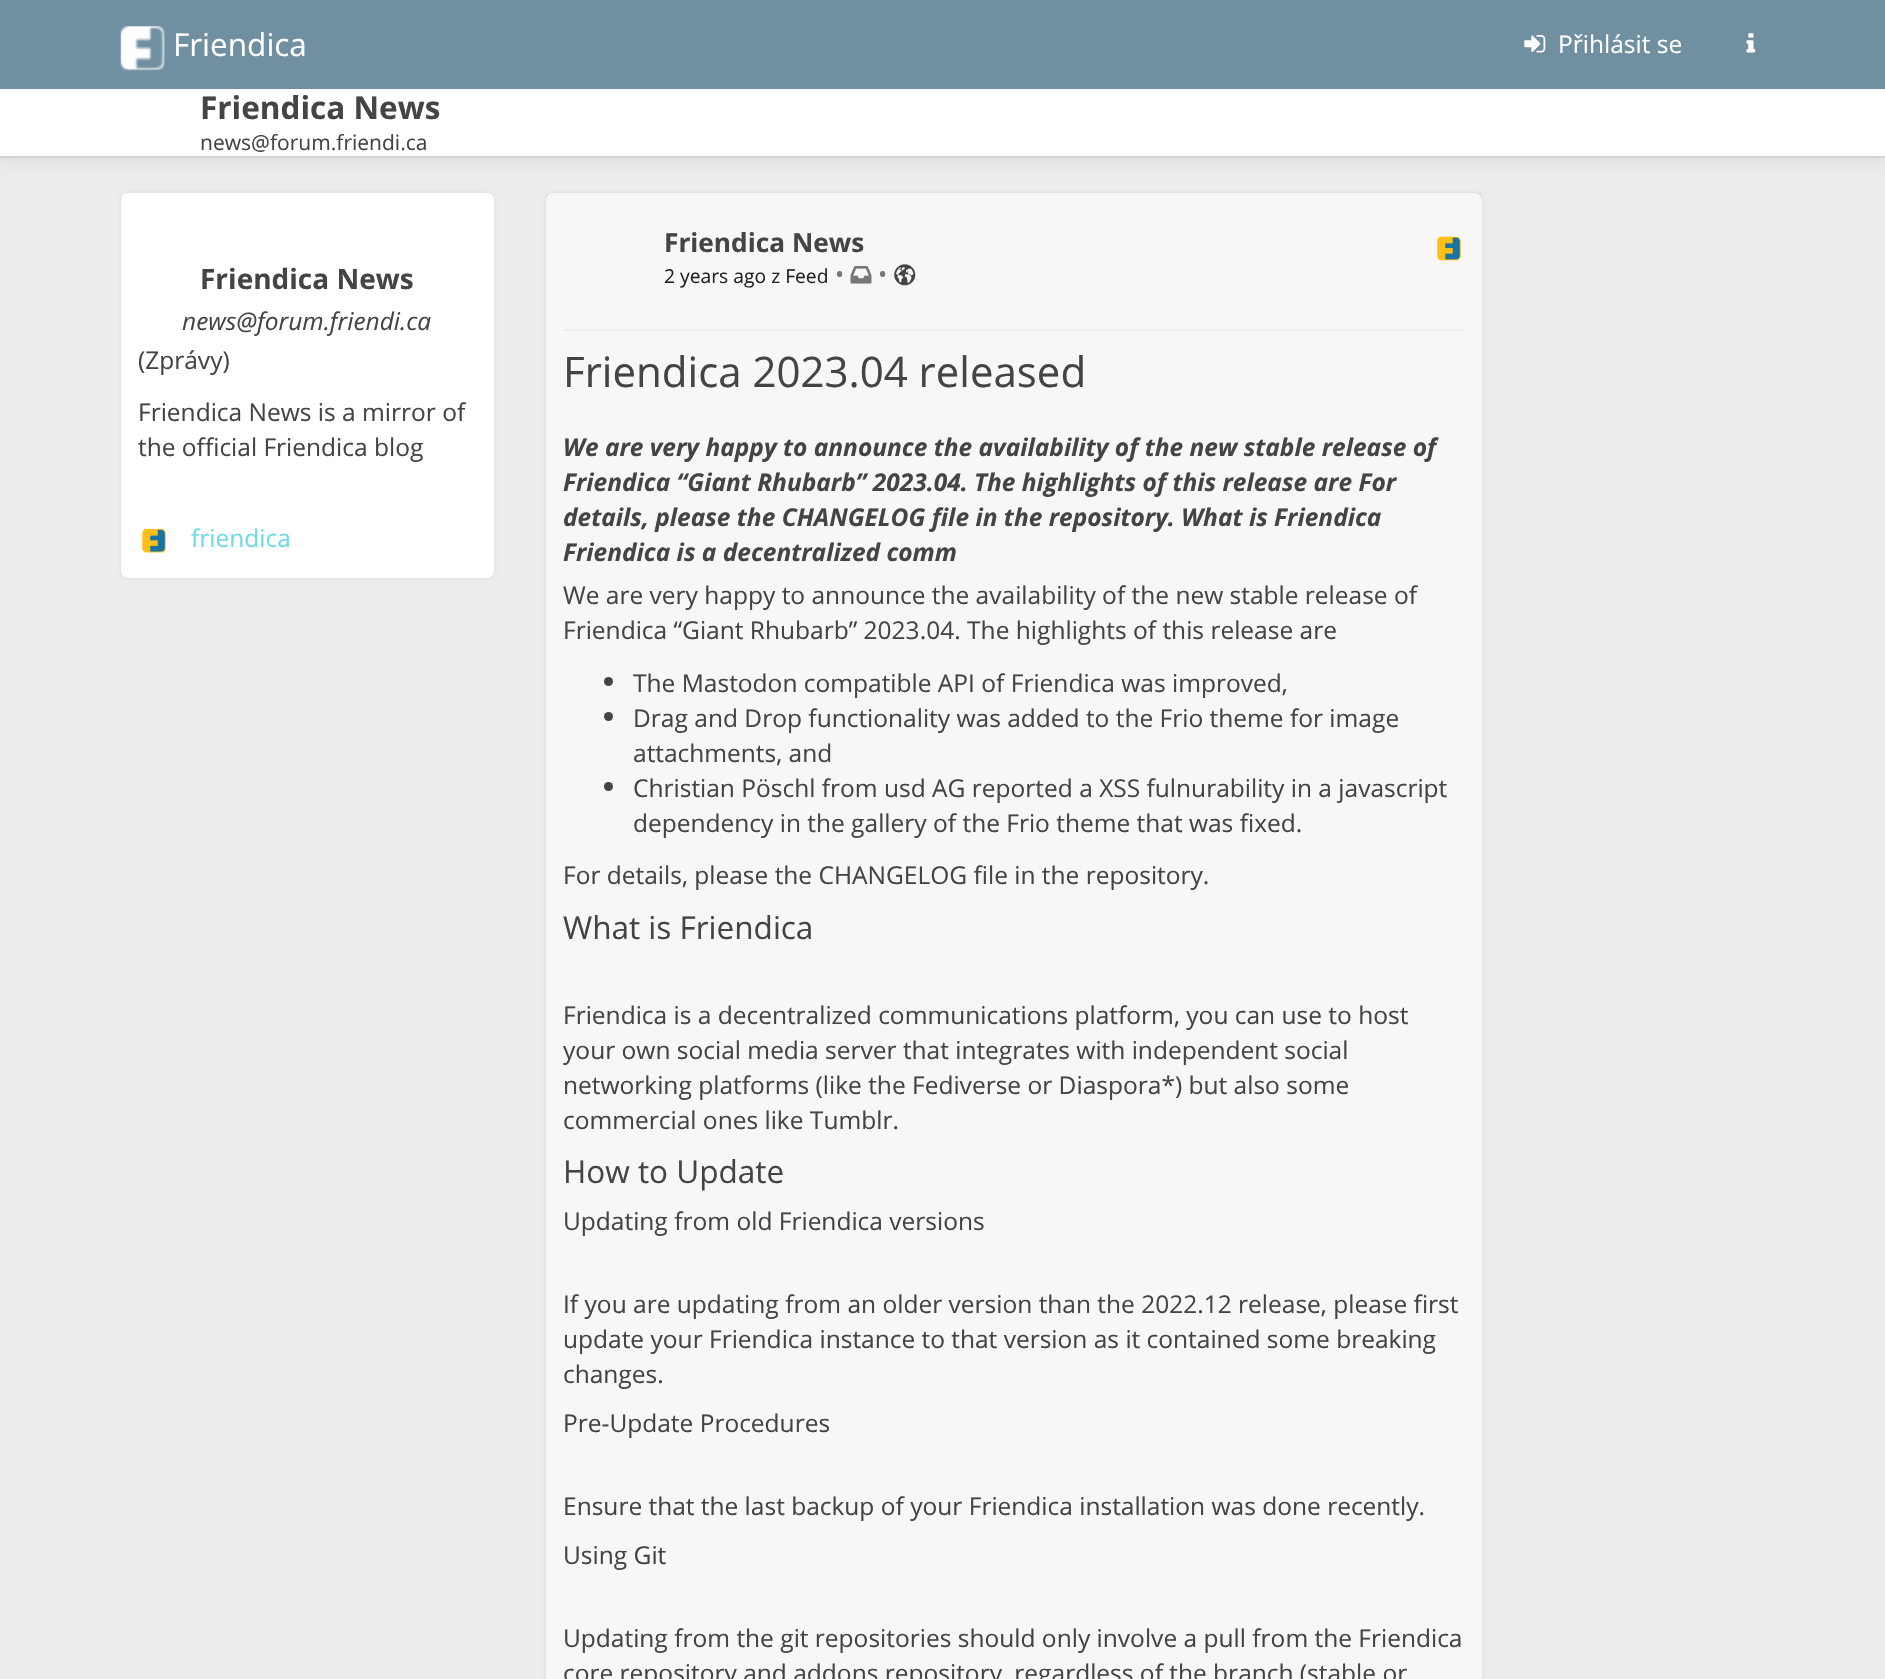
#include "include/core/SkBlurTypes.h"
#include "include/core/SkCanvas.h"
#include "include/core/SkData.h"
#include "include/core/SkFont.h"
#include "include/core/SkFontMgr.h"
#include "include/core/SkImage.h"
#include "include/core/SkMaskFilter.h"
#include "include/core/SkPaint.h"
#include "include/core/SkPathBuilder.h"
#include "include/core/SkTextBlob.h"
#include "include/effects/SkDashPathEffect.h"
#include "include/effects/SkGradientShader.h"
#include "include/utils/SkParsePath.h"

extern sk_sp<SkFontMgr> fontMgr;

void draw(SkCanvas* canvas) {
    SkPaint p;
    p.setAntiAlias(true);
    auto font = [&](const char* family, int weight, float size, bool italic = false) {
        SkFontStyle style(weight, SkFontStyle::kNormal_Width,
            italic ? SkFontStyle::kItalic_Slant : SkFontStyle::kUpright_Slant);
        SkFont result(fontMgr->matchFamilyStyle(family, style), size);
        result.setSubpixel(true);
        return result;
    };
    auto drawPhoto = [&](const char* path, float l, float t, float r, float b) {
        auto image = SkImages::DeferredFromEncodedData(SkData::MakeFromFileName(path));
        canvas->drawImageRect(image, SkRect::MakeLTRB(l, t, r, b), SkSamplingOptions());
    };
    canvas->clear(0xFFEDEDED);
    p.setColor(0x1A000000);
    p.setMaskFilter(SkMaskFilter::MakeBlur(kNormal_SkBlurStyle, 9));
    canvas->drawRect(SkRect::MakeLTRB(0, 89, 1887, 159), p);
    p.setMaskFilter(nullptr);
    p.setColor(0xFF708FA0);
    canvas->drawRect(SkRect::MakeLTRB(0, 0, 1885, 89), p);
    drawPhoto("media/1.png", 120, 26, 165, 71);
    auto font1 = font("Open Sans", 400, 31.5f);
    p.setColor(0xFFFFFFFF);
    canvas->drawString("Friendica", 173, 56, font1, p);
    drawPhoto("media/2.png", 1524, 35, 1546, 53);
    auto font2 = font("Open Sans", 400, 24.5f);
    canvas->drawString("Přihlásit se", 1558, 53, font2, p);
    drawPhoto("media/3.png", 1746, 33, 1756, 53);
    canvas->drawRect(SkRect::MakeLTRB(0, 89, 1885, 156), p);
    p.setColor(0xFFD4D4D4);
    canvas->drawRect(SkRect::MakeLTRB(0, 156, 1885, 158), p);
    auto font3 = font("Open Sans", 700, 31.5f);
    p.setColor(0xFF444444);
    canvas->drawString("Friendica News", 200, 119, font3, p);
    auto font4 = font("Open Sans", 400, 21);
    canvas->drawString("news@forum.friendi.ca", 200, 150, font4, p);
    p.setColor(0xFFDADADA);
    p.setMaskFilter(SkMaskFilter::MakeBlur(kNormal_SkBlurStyle, 2.5f));
    canvas->drawRoundRect(SkRect::MakeLTRB(121, 193, 494, 578), 7, 7, p);
    p.setMaskFilter(nullptr);
    p.setColor(0xFFFFFFFF);
    canvas->drawRoundRect(SkRect::MakeLTRB(121, 193, 494, 578), 7, 7, p);
    auto font5 = font("Open Sans", 700, 28);
    p.setColor(0xFF444444);
    canvas->drawString("Friendica News", 200, 289, font5, p);
    auto font6 = font("Open Sans", 400, 24.5f, true);
    canvas->drawString("news@forum.friendi.ca", 182, 330, font6, p);
    {
        const struct { const char* s; float x, y; } items[] = {
            {"(Zprávy)", 138, 369},
            {"Friendica News is a mirror of", 138, 421},
            {"the official Friendica blog", 138, 456},
        };
        for (auto [s, x, y] : items) {
            canvas->drawString(s, x, y, font2, p);
        }
    }
    drawPhoto("media/4.png", 142, 529, 166, 553);
    p.setColor(0xFF6FDBE8);
    canvas->drawString("friendica", 191, 547, font2, p);
    p.setColor(0xFFDADADA);
    p.setMaskFilter(SkMaskFilter::MakeBlur(kNormal_SkBlurStyle, 2));
    canvas->drawRoundRect(SkRect::MakeLTRB(546, 193, 1482, 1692), 7, 7, p);
    p.setMaskFilter(nullptr);
    p.setColor(0xFFFFFFFF);
    canvas->drawRoundRect(SkRect::MakeLTRB(546, 193, 1482, 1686), 7, 7, p);
    p.setColor(0x08000000);
    canvas->drawRect(SkRect::MakeLTRB(546, 193, 1482, 1679), p);
    auto font7 = font("Open Sans", 700, 26.25f);
    p.setColor(0xFF444444);
    canvas->drawString("Friendica News", 664, 252, font7, p);
    auto font8 = font("Open Sans", 400, 19.25f);
    p.setColor(0xFF222222);
    canvas->drawString("2 years ago z Feed", 664, 283, font8, p);
    p.setColor(0xFF777777);
    canvas->drawString("•", 835, 283, font2, p);
    drawPhoto("media/5.png", 850, 266, 872, 284);
    canvas->drawString("•", 878, 283, font2, p);
    drawPhoto("media/6.png", 894, 264, 916, 286);
    drawPhoto("media/7.png", 1437, 236, 1461, 261);
    p.setColor(0xFFEEEEEE);
    canvas->drawRect(SkRect::MakeLTRB(564, 329, 1465, 331), p);
    auto font9 = font("Open Sans", 400, 42);
    p.setColor(0xFF444444);
    canvas->drawString("Friendica 2023.04 released", 563, 387, font9, p);
    auto font10 = font("Open Sans", 700, 24.5f, true);
    {
        const struct { const char* s; float x, y; } items[] = {
            {"We are very happy to announce the availability of the new stable release of", 563, 456},
            {"Friendica “Giant Rhubarb” 2023.04. The highlights of this release are For", 563, 491},
            {"details, please the CHANGELOG file in the repository. What is Friendica", 563, 526},
            {"Friendica is a decentralized comm", 563, 561},
        };
        for (auto [s, x, y] : items) {
            canvas->drawString(s, x, y, font10, p);
        }
    }
    canvas->drawString("We are very happy to announce the availability of the new stable release of", 563, 604, font2, p);
    canvas->drawString("Friendica “Giant Rhubarb” 2023.04. The highlights of this release are", 563, 639, font2, p);
    canvas->drawCircle(608.5f, 681.5f, 4.5f, p);
    canvas->drawString("The Mastodon compatible API of Friendica was improved,", 633, 692, font2, p);
    canvas->drawCircle(608.5f, 716.5f, 4.5f, p);
    canvas->drawString("Drag and Drop functionality was added to the Frio theme for image", 633, 727, font2, p);
    canvas->drawString("attachments, and", 633, 762, font2, p);
    canvas->drawCircle(608.5f, 786.5f, 4.5f, p);
    {
        const struct { const char* s; float x, y; } items[] = {
            {"Christian Pöschl from usd AG reported a XSS fulnurability in a javascript", 633, 797},
            {"dependency in the gallery of the Frio theme that was fixed.", 633, 832},
            {"For details, please the CHANGELOG file in the repository.", 563, 884},
        };
        for (auto [s, x, y] : items) {
            canvas->drawString(s, x, y, font2, p);
        }
    }
    canvas->drawString("What is Friendica", 563, 939, font1, p);
    {
        const struct { const char* s; float x, y; } items[] = {
            {"Friendica is a decentralized communications platform, you can use to host", 563, 1024},
            {"your own social media server that integrates with independent social", 563, 1059},
            {"networking platforms (like the Fediverse or Diaspora*) but also some", 563, 1094},
            {"commercial ones like Tumblr.", 563, 1129},
        };
        for (auto [s, x, y] : items) {
            canvas->drawString(s, x, y, font2, p);
        }
    }
    canvas->drawString("How to Update", 563, 1183, font1, p);
    {
        const struct { const char* s; float x, y; } items[] = {
            {"Updating from old Friendica versions", 563, 1230},
            {"If you are updating from an older version than the 2022.12 release, please first", 563, 1313},
            {"update your Friendica instance to that version as it contained some breaking", 563, 1348},
            {"changes.", 563, 1383},
            {"Pre-Update Procedures", 563, 1432},
            {"Ensure that the last backup of your Friendica installation was done recently.", 563, 1515},
            {"Using Git", 563, 1564},
            {"Updating from the git repositories should only involve a pull from the Friendica", 563, 1647},
            {"core repository and addons repository, regardless of the branch (stable or", 563, 1682},
        };
        for (auto [s, x, y] : items) {
            canvas->drawString(s, x, y, font2, p);
        }
    }
}
